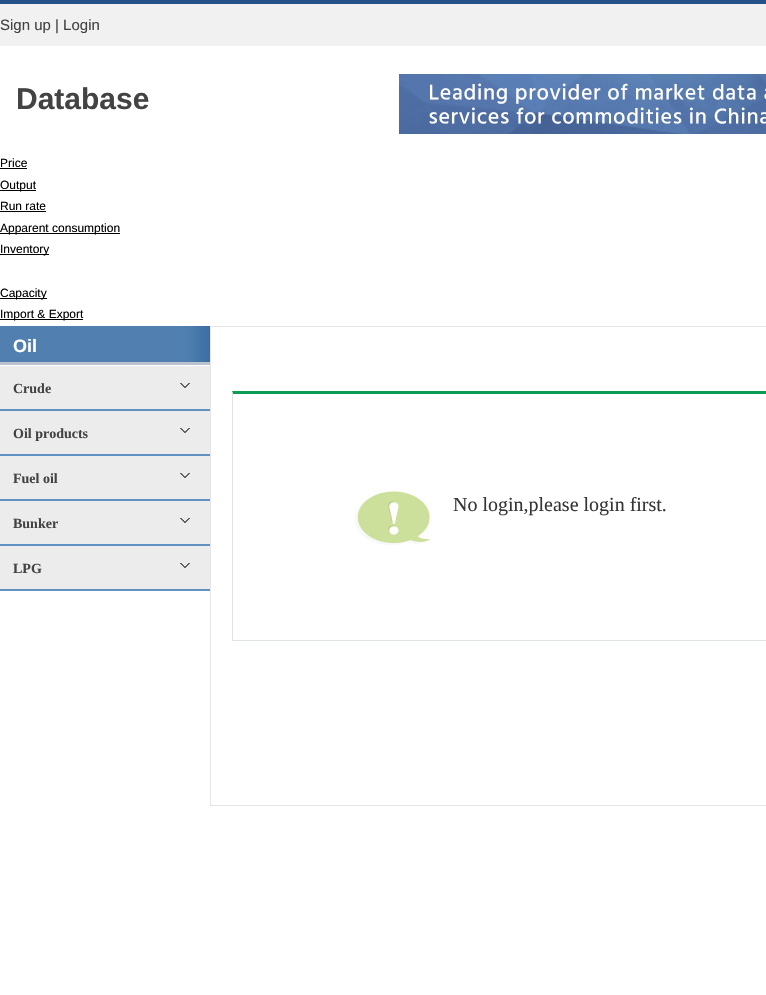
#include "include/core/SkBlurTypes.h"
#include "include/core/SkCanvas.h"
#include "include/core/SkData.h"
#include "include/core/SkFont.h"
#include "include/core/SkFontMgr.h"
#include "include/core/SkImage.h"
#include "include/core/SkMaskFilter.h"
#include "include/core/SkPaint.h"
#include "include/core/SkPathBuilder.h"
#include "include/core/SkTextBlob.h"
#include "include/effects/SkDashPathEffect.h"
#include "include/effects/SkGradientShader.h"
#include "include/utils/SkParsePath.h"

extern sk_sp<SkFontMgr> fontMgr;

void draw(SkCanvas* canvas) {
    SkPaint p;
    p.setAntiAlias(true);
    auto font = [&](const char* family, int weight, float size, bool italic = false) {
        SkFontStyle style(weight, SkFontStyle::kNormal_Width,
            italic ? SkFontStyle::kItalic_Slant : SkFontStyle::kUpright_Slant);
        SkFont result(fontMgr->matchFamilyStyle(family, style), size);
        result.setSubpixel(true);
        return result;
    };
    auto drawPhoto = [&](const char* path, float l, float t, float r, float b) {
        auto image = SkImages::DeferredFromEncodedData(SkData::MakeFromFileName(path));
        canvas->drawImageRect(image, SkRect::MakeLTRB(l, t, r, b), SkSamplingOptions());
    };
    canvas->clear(0xFFFFFFFF);
    p.setColor(0xFFF1F1F1);
    canvas->drawRect(SkRect::MakeLTRB(0, 4, 766, 46), p);
    p.setColor(0xFF255088);
    canvas->drawRect(SkRect::MakeLTRB(0, 0, 766, 4), p);
    auto font1 = font("Liberation Sans", 400, 15);
    p.setColor(0xFF434343);
    canvas->drawString("Sign up | Login", 0, 30, font1, p);
    auto font2 = font("Liberation Sans", 700, 30);
    canvas->drawString("Database", 16, 109, font2, p);
    drawPhoto("media/1.png", 399, 74, 766, 134);
    auto font3 = font("Liberation Sans", 400, 12);
    p.setColor(0xFF000000);
    canvas->drawString("Price", 0, 167, font3, p);
    canvas->drawRect(SkRect::MakeLTRB(0, 168, 27, 169), p);
    canvas->drawRect(SkRect::MakeLTRB(0, 190, 36, 191), p);
    canvas->drawString("Output", 0, 189, font3, p);
    canvas->drawString("Run rate", 0, 210, font3, p);
    canvas->drawRect(SkRect::MakeLTRB(0, 211, 46, 212), p);
    canvas->drawRect(SkRect::MakeLTRB(0, 233, 120, 234), p);
    canvas->drawString("Apparent consumption", 0, 232, font3, p);
    canvas->drawRect(SkRect::MakeLTRB(0, 254, 49, 255), p);
    canvas->drawString("Inventory", 0, 253, font3, p);
    canvas->drawRect(SkRect::MakeLTRB(0, 298, 47, 299), p);
    canvas->drawString("Capacity", 0, 297, font3, p);
    canvas->drawRect(SkRect::MakeLTRB(0, 319, 83, 320), p);
    canvas->drawString("Import & Export", 0, 318, font3, p);
    drawPhoto("media/2.png", 0, 326, 210, 365);
    auto font4 = font("Liberation Sans", 700, 18);
    p.setColor(0xFFFFFFFF);
    canvas->drawString("Oil", 13, 352, font4, p);
    p.setColor(0xFFECECEC);
    canvas->drawRect(SkRect::MakeLTRB(0, 366, 210, 409), p);
    drawPhoto("media/3.png", 180, 383, 190, 388);
    p.setColor(0xFF5F91C2);
    canvas->drawRect(SkRect::MakeLTRB(0, 409, 210, 411), p);
    auto font5 = font("Liberation Serif", 700, 14);
    p.setColor(0xFF434343);
    canvas->drawString("Crude", 13, 393, font5, p);
    p.setColor(0xFFECECEC);
    canvas->drawRect(SkRect::MakeLTRB(0, 411, 210, 454), p);
    drawPhoto("media/3.png", 180, 428, 190, 433);
    p.setColor(0xFF5F91C2);
    canvas->drawRect(SkRect::MakeLTRB(0, 454, 210, 456), p);
    p.setColor(0xFF434343);
    canvas->drawString("Oil products", 13, 438, font5, p);
    p.setColor(0xFFECECEC);
    canvas->drawRect(SkRect::MakeLTRB(0, 456, 210, 499), p);
    drawPhoto("media/3.png", 180, 473, 190, 478);
    p.setColor(0xFF5F91C2);
    canvas->drawRect(SkRect::MakeLTRB(0, 499, 210, 501), p);
    p.setColor(0xFF434343);
    canvas->drawString("Fuel oil", 13, 483, font5, p);
    p.setColor(0xFFECECEC);
    canvas->drawRect(SkRect::MakeLTRB(0, 501, 210, 544), p);
    drawPhoto("media/3.png", 180, 518, 190, 523);
    p.setColor(0xFF5F91C2);
    canvas->drawRect(SkRect::MakeLTRB(0, 544, 210, 546), p);
    p.setColor(0xFF434343);
    canvas->drawString("Bunker", 13, 528, font5, p);
    p.setColor(0xFFECECEC);
    canvas->drawRect(SkRect::MakeLTRB(0, 546, 210, 589), p);
    drawPhoto("media/3.png", 180, 563, 190, 568);
    p.setColor(0xFF5F91C2);
    canvas->drawRect(SkRect::MakeLTRB(0, 589, 210, 591), p);
    p.setColor(0xFF434343);
    canvas->drawString("LPG", 13, 573, font5, p);
    p.setStyle(SkPaint::kStroke_Style);
    p.setStrokeWidth(1);
    p.setColor(0xFFE4E4E4);
    canvas->drawRect(SkRect::MakeLTRB(210.5f, 326.5f, 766.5f, 805.5f), p);
    p.setStyle(SkPaint::kFill_Style);
    p.setColor(0xFF0C9D54);
    canvas->drawPath(SkPathBuilder().moveTo(232, 391).lineTo(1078, 391).lineTo(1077, 394).lineTo(233, 394).close().detach(), p);
    p.setColor(0xFFDEE3E5);
    canvas->drawRect(SkRect::MakeLTRB(232, 640, 766, 641), p);
    canvas->drawPath(SkPathBuilder().moveTo(232, 641).lineTo(232, 391).lineTo(233, 394).lineTo(233, 640).close().detach(), p);
    drawPhoto("media/4.png", 353, 487, 433, 545);
    auto font6 = font("Liberation Serif", 400, 20);
    p.setColor(0xFF353535);
    canvas->drawString("No login,please login first.", 453, 511, font6, p);
}
